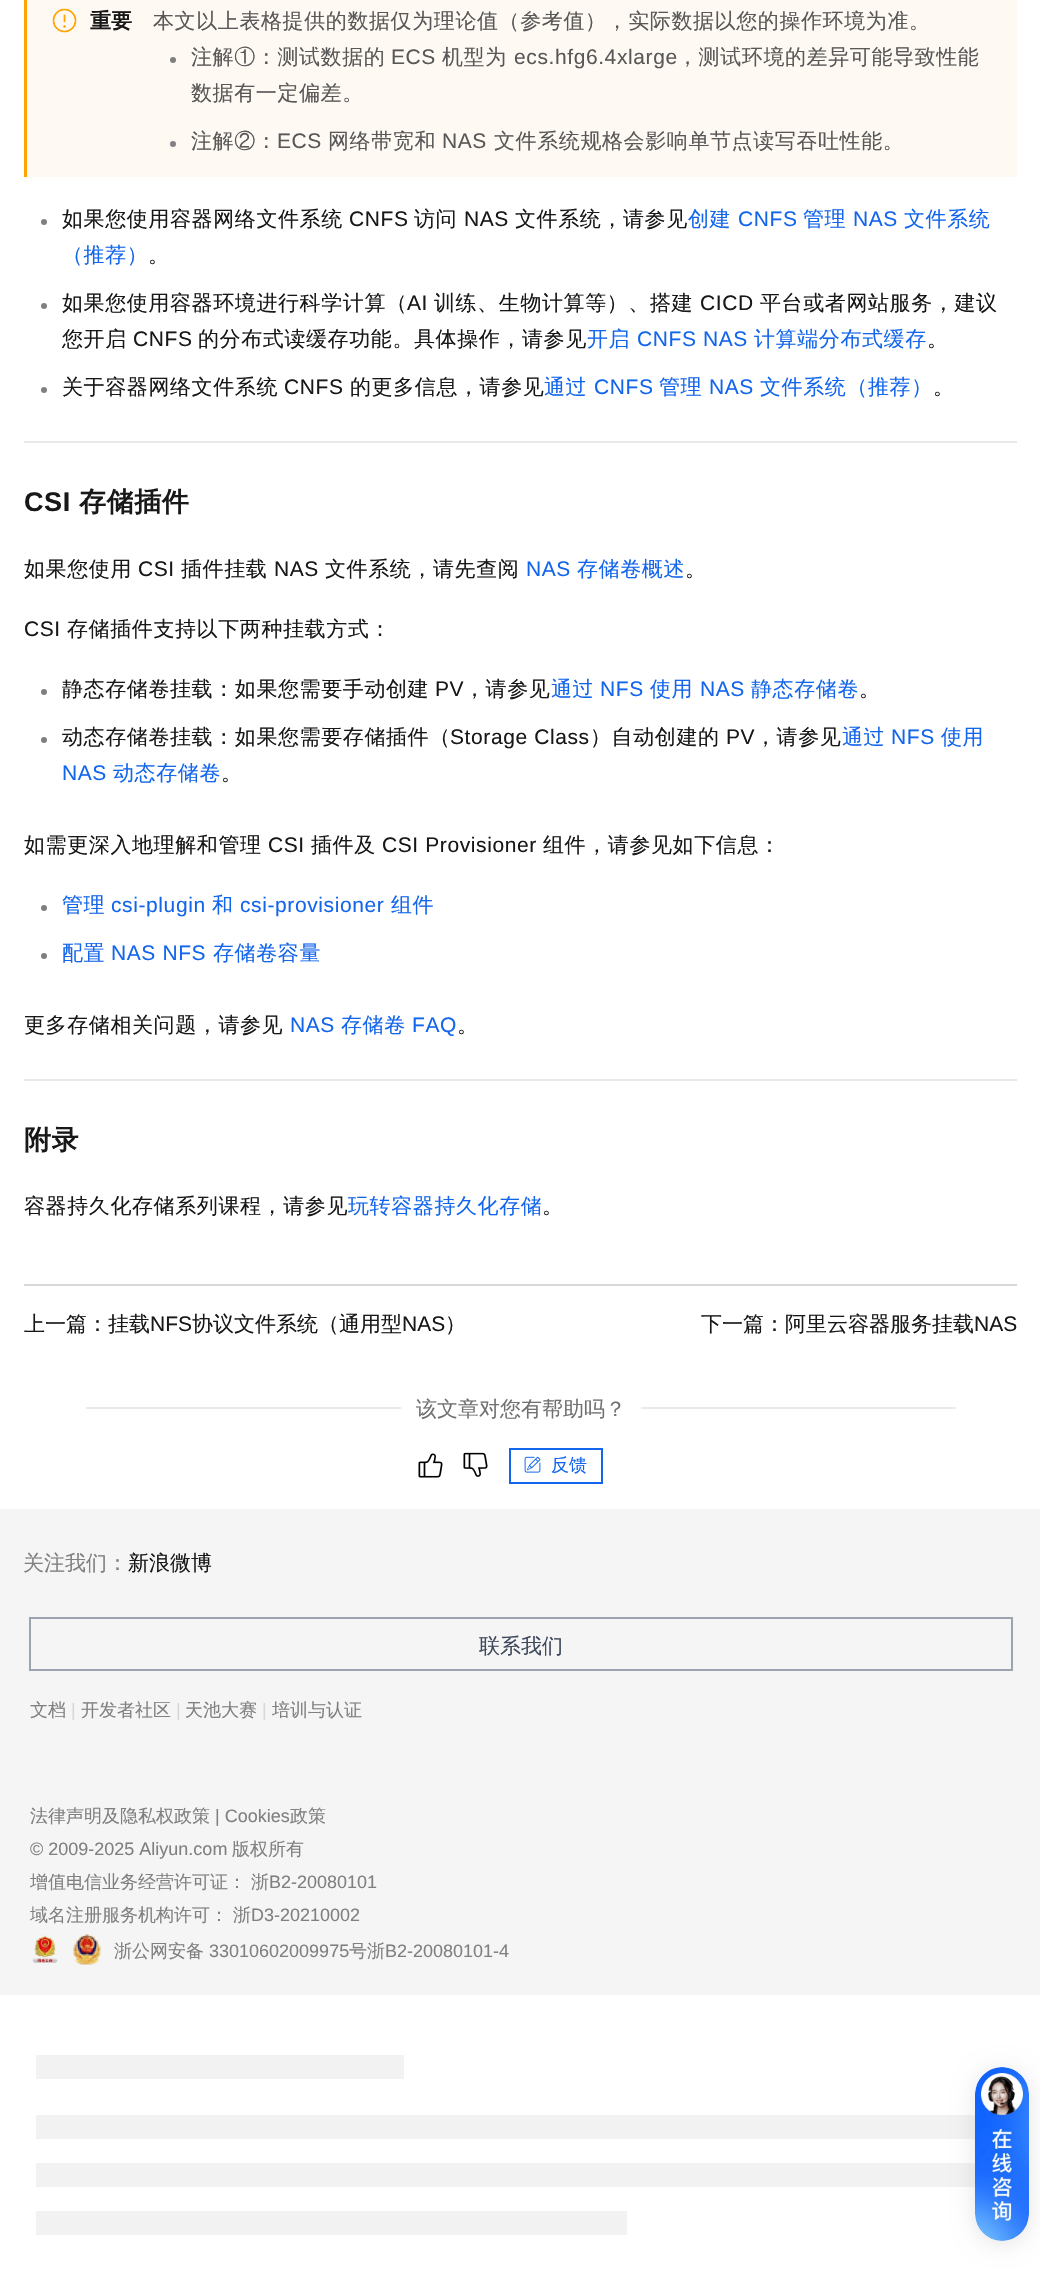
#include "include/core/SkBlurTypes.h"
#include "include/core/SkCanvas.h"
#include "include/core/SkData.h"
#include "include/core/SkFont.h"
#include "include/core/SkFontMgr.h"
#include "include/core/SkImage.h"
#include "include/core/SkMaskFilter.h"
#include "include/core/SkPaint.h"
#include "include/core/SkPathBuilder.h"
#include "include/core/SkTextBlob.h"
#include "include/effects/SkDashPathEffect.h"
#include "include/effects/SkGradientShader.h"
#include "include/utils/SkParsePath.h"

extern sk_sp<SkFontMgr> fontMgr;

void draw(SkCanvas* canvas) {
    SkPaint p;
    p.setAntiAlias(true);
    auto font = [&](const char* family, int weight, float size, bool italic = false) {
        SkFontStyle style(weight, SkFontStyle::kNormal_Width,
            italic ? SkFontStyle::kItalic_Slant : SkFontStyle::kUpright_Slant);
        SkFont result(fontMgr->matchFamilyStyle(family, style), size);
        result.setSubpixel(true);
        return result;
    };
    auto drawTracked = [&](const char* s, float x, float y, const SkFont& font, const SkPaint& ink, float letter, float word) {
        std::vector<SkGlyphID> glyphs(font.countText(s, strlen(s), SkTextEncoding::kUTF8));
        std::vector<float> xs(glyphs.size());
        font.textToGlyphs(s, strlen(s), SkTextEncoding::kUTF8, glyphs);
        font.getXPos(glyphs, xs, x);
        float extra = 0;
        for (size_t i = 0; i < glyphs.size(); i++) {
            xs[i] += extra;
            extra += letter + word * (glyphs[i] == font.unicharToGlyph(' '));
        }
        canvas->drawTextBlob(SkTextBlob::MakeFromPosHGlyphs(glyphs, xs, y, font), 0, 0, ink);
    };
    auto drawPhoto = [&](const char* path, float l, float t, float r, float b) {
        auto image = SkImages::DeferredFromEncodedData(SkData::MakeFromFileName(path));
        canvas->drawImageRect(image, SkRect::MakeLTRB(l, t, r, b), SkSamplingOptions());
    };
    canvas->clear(0xFFFFFFFF);
    p.setColor(0xFFFFF9F3);
    canvas->drawRect(SkRect::MakeLTRB(27, 0, 1017, 177), p);
    p.setColor(0xFFFFA400);
    canvas->drawRect(SkRect::MakeLTRB(24, 0, 27, 177), p);
    drawPhoto("media/1.png", 52, 8, 77, 33);
    auto font1 = font("WenQuanYi Zen Hei", 700, 21);
    p.setColor(0xFF181818);
    canvas->drawString("重要", 90, 28, font1, p);
    auto font2 = font("WenQuanYi Zen Hei", 500, 21);
    p.setColor(0xFF585858);
    drawTracked("本文以上表格提供的数据仅为理论值（参考值），实际数据以您的操作环境为准。", 153, 28, font2, p, 0.6f, 0);
    p.setColor(0xFF808080);
    canvas->drawCircle(173, 60, 3, p);
    p.setColor(0xFF585858);
    drawTracked("注解①：测试数据的", 191, 64, font2, p, 0.6f, 0);
    auto font3 = font("Liberation Sans", 400, 21);
    drawTracked("ECS", 391, 64, font3, p, 0.6f, 0);
    drawTracked("机型为", 442, 64, font2, p, 0.6f, 0);
    drawTracked("ecs.hfg6.4xlarge", 514, 64, font3, p, 0.6f, 0);
    drawTracked("，测试环境的差异可能导致性能", 677, 64, font2, p, 0.6f, 0);
    drawTracked("数据有一定偏差。", 191, 100, font2, p, 0.6f, 0);
    p.setColor(0xFF808080);
    canvas->drawCircle(173, 144, 3, p);
    p.setColor(0xFF585858);
    drawTracked("注解②：", 191, 148, font2, p, 0.6f, 0);
    drawTracked("ECS", 277, 148, font3, p, 0.6f, 0);
    drawTracked("网络带宽和", 328, 148, font2, p, 0.6f, 0);
    drawTracked("NAS", 442, 148, font3, p, 0.6f, 0);
    drawTracked("文件系统规格会影响单节点读写吞吐性能。", 494, 148, font2, p, 0.6f, 0);
    p.setColor(0xFF808080);
    canvas->drawCircle(44, 222, 3, p);
    p.setColor(0xFF181818);
    drawTracked("如果您使用容器网络文件系统", 62, 226, font2, p, 0.6f, 0);
    drawTracked("CNFS", 349, 226, font3, p, 0.6f, 0);
    drawTracked("访问", 414, 226, font2, p, 0.6f, 0);
    drawTracked("NAS", 464, 226, font3, p, 0.6f, 0);
    drawTracked("文件系统，请参见", 515, 226, font2, p, 0.6f, 0);
    p.setColor(0xFF1366EC);
    drawTracked("创建", 688, 226, font2, p, 0.6f, 0);
    drawTracked("CNFS", 738, 226, font3, p, 0.6f, 0);
    drawTracked("管理", 803, 226, font2, p, 0.6f, 0);
    drawTracked("NAS", 853, 226, font3, p, 0.6f, 0);
    drawTracked("文件系统", 904, 226, font2, p, 0.6f, 0);
    drawTracked("（推荐）", 62, 262, font2, p, 0.6f, 0);
    p.setColor(0xFF181818);
    drawTracked("。", 148, 262, font2, p, 0.6f, 0);
    p.setColor(0xFF808080);
    canvas->drawCircle(44, 306, 3, p);
    p.setColor(0xFF181818);
    drawTracked("如果您使用容器环境进行科学计算（", 62, 310, font2, p, 0.6f, 0);
    drawTracked("AI", 407, 310, font3, p, 0.6f, 0);
    drawTracked("训练、生物计算等）、搭建", 434, 310, font2, p, 0.6f, 0);
    drawTracked("CICD", 700, 310, font3, p, 0.6f, 0);
    drawTracked("平台或者网站服务，建议", 760, 310, font2, p, 0.6f, 0);
    drawTracked("您开启", 62, 346, font2, p, 0.6f, 0);
    drawTracked("CNFS", 133, 346, font3, p, 0.6f, 0);
    drawTracked("的分布式读缓存功能。具体操作，请参见", 198, 346, font2, p, 0.6f, 0);
    p.setColor(0xFF1366EC);
    drawTracked("开启", 587, 346, font2, p, 0.6f, 0);
    drawTracked("CNFS NAS", 637, 346, font3, p, 0.6f, 0);
    drawTracked("计算端分布式缓存", 754, 346, font2, p, 0.6f, 0);
    p.setColor(0xFF181818);
    drawTracked("。", 927, 346, font2, p, 0.6f, 0);
    p.setColor(0xFF808080);
    canvas->drawCircle(44, 390, 3, p);
    p.setColor(0xFF181818);
    drawTracked("关于容器网络文件系统", 62, 394, font2, p, 0.6f, 0);
    drawTracked("CNFS", 284, 394, font3, p, 0.6f, 0);
    drawTracked("的更多信息，请参见", 350, 394, font2, p, 0.6f, 0);
    p.setColor(0xFF1366EC);
    drawTracked("通过", 544, 394, font2, p, 0.6f, 0);
    drawTracked("CNFS", 594, 394, font3, p, 0.6f, 0);
    drawTracked("管理", 659, 394, font2, p, 0.6f, 0);
    drawTracked("NAS", 709, 394, font3, p, 0.6f, 0);
    drawTracked("文件系统（推荐）", 760, 394, font2, p, 0.6f, 0);
    p.setColor(0xFF181818);
    drawTracked("。", 933, 394, font2, p, 0.6f, 0);
    p.setColor(0xFFE9E9E9);
    canvas->drawRect(SkRect::MakeLTRB(24, 441, 1017, 443), p);
    auto font4 = font("Liberation Sans", 700, 27);
    p.setColor(0xFF181818);
    drawTracked("CSI", 24, 511, font4, p, 0.6f, 0);
    auto font5 = font("WenQuanYi Zen Hei", 700, 27);
    drawTracked("存储插件", 79, 511, font5, p, 0.6f, 0);
    drawTracked("如果您使用", 24, 576, font2, p, 0.6f, 0);
    drawTracked("CSI", 138, 576, font3, p, 0.6f, 0);
    drawTracked("插件挂载", 181, 576, font2, p, 0.6f, 0);
    drawTracked("NAS", 274, 576, font3, p, 0.6f, 0);
    drawTracked("文件系统，请先查阅", 325, 576, font2, p, 0.6f, 0);
    p.setColor(0xFF1366EC);
    drawTracked("NAS", 526, 576, font3, p, 0.6f, 0);
    drawTracked("存储卷概述", 577, 576, font2, p, 0.6f, 0);
    p.setColor(0xFF181818);
    drawTracked("。", 685, 576, font2, p, 0.6f, 0);
    drawTracked("CSI", 24, 636, font3, p, 0.6f, 0);
    drawTracked("存储插件支持以下两种挂载方式：", 67, 636, font2, p, 0.6f, 0);
    p.setColor(0xFF808080);
    canvas->drawCircle(44, 692, 3, p);
    p.setColor(0xFF181818);
    drawTracked("静态存储卷挂载：如果您需要手动创建", 62, 696, font2, p, 0.6f, 0);
    drawTracked("PV", 435, 696, font3, p, 0.6f, 0);
    drawTracked("，请参见", 464, 696, font2, p, 0.6f, 0);
    p.setColor(0xFF1366EC);
    drawTracked("通过", 551, 696, font2, p, 0.6f, 0);
    drawTracked("NFS", 600, 696, font3, p, 0.6f, 0);
    drawTracked("使用", 650, 696, font2, p, 0.6f, 0);
    drawTracked("NAS", 700, 696, font3, p, 0.6f, 0);
    drawTracked("静态存储卷", 751, 696, font2, p, 0.6f, 0);
    p.setColor(0xFF181818);
    drawTracked("。", 859, 696, font2, p, 0.6f, 0);
    p.setColor(0xFF808080);
    canvas->drawCircle(44, 740, 3, p);
    p.setColor(0xFF181818);
    drawTracked("动态存储卷挂载：如果您需要存储插件（", 62, 744, font2, p, 0.6f, 0);
    drawTracked("Storage Class", 450, 744, font3, p, 0.6f, 0);
    drawTracked("）自动创建的", 590, 744, font2, p, 0.6f, 0);
    drawTracked("PV", 726, 744, font3, p, 0.6f, 0);
    drawTracked("，请参见", 755, 744, font2, p, 0.6f, 0);
    p.setColor(0xFF1366EC);
    drawTracked("通过", 842, 744, font2, p, 0.6f, 0);
    drawTracked("NFS", 891, 744, font3, p, 0.6f, 0);
    drawTracked("使用", 941, 744, font2, p, 0.6f, 0);
    drawTracked("NAS", 62, 780, font3, p, 0.6f, 0);
    drawTracked("动态存储卷", 113, 780, font2, p, 0.6f, 0);
    p.setColor(0xFF181818);
    drawTracked("。", 221, 780, font2, p, 0.6f, 0);
    drawTracked("如需更深入地理解和管理", 24, 852, font2, p, 0.6f, 0);
    drawTracked("CSI", 268, 852, font3, p, 0.6f, 0);
    drawTracked("插件及", 311, 852, font2, p, 0.6f, 0);
    drawTracked("CSI Provisioner", 382, 852, font3, p, 0.6f, 0);
    drawTracked("组件，请参见如下信息：", 543, 852, font2, p, 0.6f, 0);
    p.setColor(0xFF808080);
    canvas->drawCircle(44, 908, 3, p);
    p.setColor(0xFF1366EC);
    drawTracked("管理", 62, 912, font2, p, 0.6f, 0);
    drawTracked("csi-plugin", 111, 912, font3, p, 0.6f, 0);
    drawTracked("和", 212, 912, font2, p, 0.6f, 0);
    drawTracked("csi-provisioner", 240, 912, font3, p, 0.6f, 0);
    drawTracked("组件", 391, 912, font2, p, 0.6f, 0);
    p.setColor(0xFF808080);
    canvas->drawCircle(44, 956, 3, p);
    p.setColor(0xFF1366EC);
    drawTracked("配置", 62, 960, font2, p, 0.6f, 0);
    drawTracked("NAS NFS", 111, 960, font3, p, 0.6f, 0);
    drawTracked("存储卷容量", 213, 960, font2, p, 0.6f, 0);
    p.setColor(0xFF181818);
    drawTracked("更多存储相关问题，请参见", 24, 1032, font2, p, 0.6f, 0);
    p.setColor(0xFF1366EC);
    drawTracked("NAS", 290, 1032, font3, p, 0.6f, 0);
    drawTracked("存储卷", 341, 1032, font2, p, 0.6f, 0);
    drawTracked("FAQ", 412, 1032, font3, p, 0.6f, 0);
    p.setColor(0xFF181818);
    drawTracked("。", 457, 1032, font2, p, 0.6f, 0);
    p.setColor(0xFFE9E9E9);
    canvas->drawRect(SkRect::MakeLTRB(24, 1079, 1017, 1081), p);
    p.setColor(0xFF181818);
    drawTracked("附录", 24, 1149, font5, p, 0.6f, 0);
    drawTracked("容器持久化存储系列课程，请参见", 24, 1213, font2, p, 0.6f, 0);
    p.setColor(0xFF1366EC);
    drawTracked("玩转容器持久化存储", 348, 1213, font2, p, 0.6f, 0);
    p.setColor(0xFF181818);
    drawTracked("。", 542, 1213, font2, p, 0.6f, 0);
    p.setColor(0xFFD7D8D9);
    canvas->drawRect(SkRect::MakeLTRB(24, 1284, 1017, 1286), p);
    p.setColor(0xFF181818);
    canvas->drawString("上一篇：挂载", 24, 1331, font2, p);
    canvas->drawString("NFS", 150, 1331, font3, p);
    canvas->drawString("协议文件系统（通用型", 192, 1331, font2, p);
    canvas->drawString("NAS", 402, 1331, font3, p);
    canvas->drawString("）", 445, 1331, font2, p);
    canvas->drawString("下一篇：阿里云容器服务挂载", 701, 1331, font2, p);
    canvas->drawString("NAS", 974, 1331, font3, p);
    p.setColor(0xFFEAEAEA);
    canvas->drawRect(SkRect::MakeLTRB(86, 1407, 401, 1409), p);
    p.setColor(0xFF717171);
    canvas->drawString("该文章对您有帮助吗？", 416, 1416, font2, p);
    p.setColor(0xFFEAEAEA);
    canvas->drawRect(SkRect::MakeLTRB(641, 1407, 956, 1409), p);
    drawPhoto("media/2.png", 418, 1453, 443, 1478);
    drawPhoto("media/3.png", 463, 1452, 488, 1477);
    p.setStyle(SkPaint::kStroke_Style);
    p.setStrokeWidth(2);
    p.setColor(0xFF1366EC);
    canvas->drawRect(SkRect::MakeLTRB(510, 1449, 602, 1483), p);
    drawPhoto("media/4.png", 524, 1456, 541, 1473);
    auto font6 = font("WenQuanYi Zen Hei", 500, 18);
    p.setStyle(SkPaint::kFill_Style);
    canvas->drawString("反馈", 551, 1471, font6, p);
    p.setColor(0xFFF5F5F6);
    canvas->drawRect(SkRect::MakeLTRB(0, 1509, 1040, 1995), p);
    p.setColor(0xFF808080);
    canvas->drawString("关注我们：", 23, 1570, font2, p);
    p.setColor(0xFF181818);
    canvas->drawString("新浪微博", 128, 1570, font2, p);
    p.setStyle(SkPaint::kStroke_Style);
    p.setColor(0xFF9CA4AF);
    canvas->drawRect(SkRect::MakeLTRB(30, 1618, 1012, 1670), p);
    p.setStyle(SkPaint::kFill_Style);
    p.setColor(0xFF3D495C);
    canvas->drawString("联系我们", 479, 1653, font2, p);
    p.setColor(0xFF808080);
    canvas->drawString("文档", 30, 1716, font6, p);
    auto font7 = font("Liberation Sans", 400, 18);
    p.setColor(0xFFD7D8D9);
    canvas->drawString("|", 71, 1716, font7, p);
    p.setColor(0xFF808080);
    canvas->drawString("开发者社区", 81, 1716, font6, p);
    p.setColor(0xFFD7D8D9);
    canvas->drawString("|", 176, 1716, font7, p);
    p.setColor(0xFF808080);
    canvas->drawString("天池大赛", 185, 1716, font6, p);
    p.setColor(0xFFD7D8D9);
    canvas->drawString("|", 262, 1716, font7, p);
    p.setColor(0xFF808080);
    canvas->drawString("培训与认证", 272, 1716, font6, p);
    canvas->drawString("法律声明及隐私权政策", 30, 1822, font6, p);
    canvas->drawString("| Cookies", 215, 1822, font7, p);
    canvas->drawString("政策", 290, 1822, font6, p);
    canvas->drawString("© 2009-2025 Aliyun.com", 30, 1855, font7, p);
    {
        const struct { const char* s; float x, y; } items[] = {
            {"版权所有", 232, 1855},
            {"增值电信业务经营许可证：", 30, 1888},
            {"浙", 251, 1888},
        };
        for (auto [s, x, y] : items) {
            canvas->drawString(s, x, y, font6, p);
        }
    }
    canvas->drawString("B2-20080101", 269, 1888, font7, p);
    canvas->drawString("域名注册服务机构许可：", 30, 1921, font6, p);
    canvas->drawString("浙", 233, 1921, font6, p);
    canvas->drawString("D3-20210002", 251, 1921, font7, p);
    drawPhoto("media/5.png", 32, 1935, 58, 1963);
    drawPhoto("media/6.png", 73, 1934, 101, 1965);
    canvas->drawString("浙公网安备", 114, 1957, font6, p);
    canvas->drawString("33010602009975", 209, 1957, font7, p);
    canvas->drawString("号浙", 349, 1957, font6, p);
    canvas->drawString("B2-20080101-4", 385, 1957, font7, p);
    {
        const SkColor colors[] = {0xFFF2F2F2, 0xFFE6E6E6, 0xFFF2F2F2};
        const float stops[] = {0.25f, 0.37f, 0.63f};
        const SkPoint ends[] = {{36, 2067}, {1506, 2067}};
        p.setShader(SkGradientShader::MakeLinear(ends, colors, stops, 3, SkTileMode::kClamp));
        p.setAlpha(255);
    }
    canvas->drawRect(SkRect::MakeLTRB(36, 2055, 404, 2079), p);
    {
        const SkColor colors[] = {0xFFF2F2F2, 0xFFE6E6E6, 0xFFF2F2F2};
        const float stops[] = {0.25f, 0.37f, 0.63f};
        const SkPoint ends[] = {{36, 2127}, {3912, 2127}};
        p.setShader(SkGradientShader::MakeLinear(ends, colors, stops, 3, SkTileMode::kClamp));
        p.setAlpha(255);
    }
    canvas->drawRect(SkRect::MakeLTRB(36, 2115, 975, 2139), p);
    {
        const SkColor colors[] = {0xFFF2F2F2, 0xFFE6E6E6, 0xFFF2F2F2};
        const float stops[] = {0.25f, 0.37f, 0.63f};
        const SkPoint ends[] = {{36, 2175}, {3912, 2175}};
        p.setShader(SkGradientShader::MakeLinear(ends, colors, stops, 3, SkTileMode::kClamp));
        p.setAlpha(255);
    }
    canvas->drawRect(SkRect::MakeLTRB(36, 2163, 975, 2187), p);
    {
        const SkColor colors[] = {0xFFF2F2F2, 0xFFE6E6E6, 0xFFF2F2F2};
        const float stops[] = {0.25f, 0.37f, 0.63f};
        const SkPoint ends[] = {{36, 2223}, {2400, 2223}};
        p.setShader(SkGradientShader::MakeLinear(ends, colors, stops, 3, SkTileMode::kClamp));
        p.setAlpha(255);
    }
    canvas->drawRect(SkRect::MakeLTRB(36, 2211, 627, 2235), p);
    p.setShader(nullptr);
    p.setColor(0x1A000000);
    p.setMaskFilter(SkMaskFilter::MakeBlur(kNormal_SkBlurStyle, 11));
    canvas->drawRoundRect(SkRect::MakeLTRB(975, 2070, 1029, 2244), 27, 27, p);
    p.setMaskFilter(nullptr);
    drawPhoto("media/7.png", 975, 2067, 1029, 2241);
}
